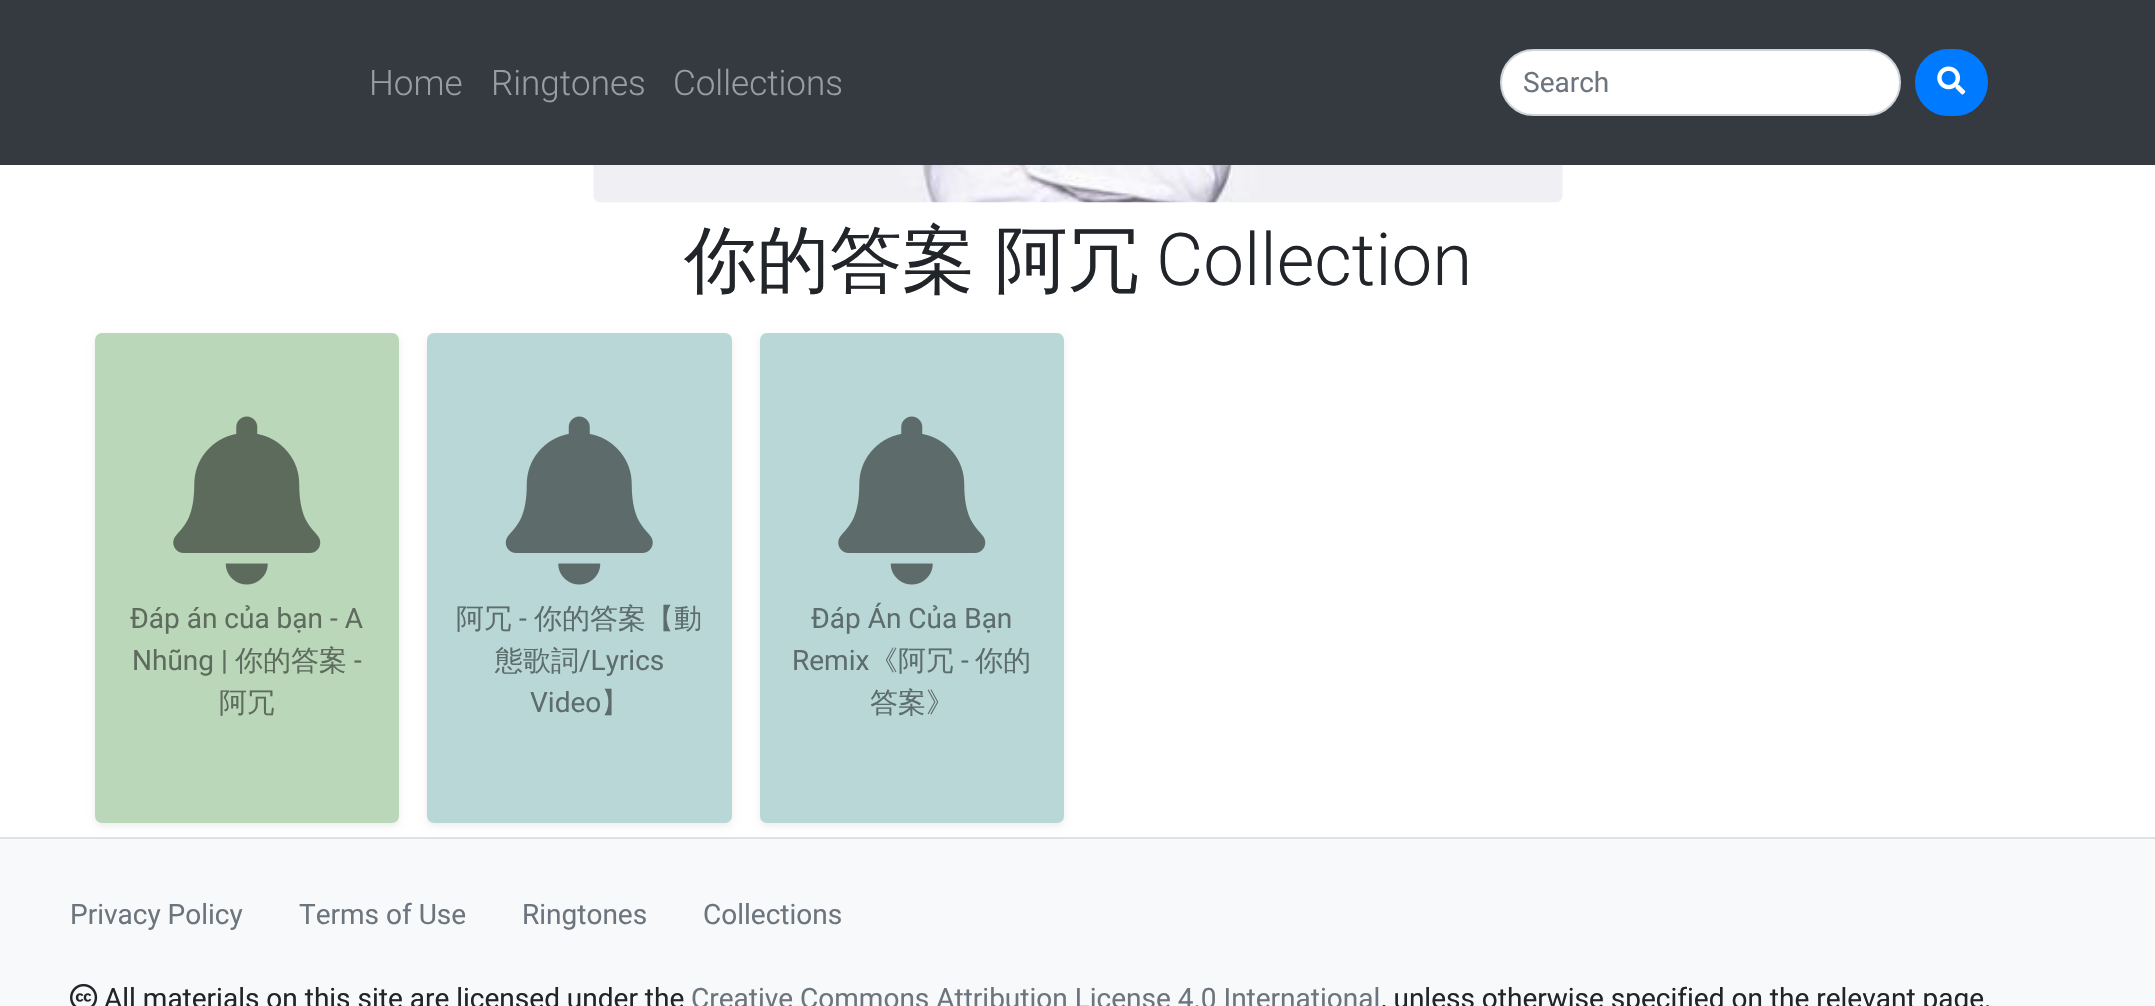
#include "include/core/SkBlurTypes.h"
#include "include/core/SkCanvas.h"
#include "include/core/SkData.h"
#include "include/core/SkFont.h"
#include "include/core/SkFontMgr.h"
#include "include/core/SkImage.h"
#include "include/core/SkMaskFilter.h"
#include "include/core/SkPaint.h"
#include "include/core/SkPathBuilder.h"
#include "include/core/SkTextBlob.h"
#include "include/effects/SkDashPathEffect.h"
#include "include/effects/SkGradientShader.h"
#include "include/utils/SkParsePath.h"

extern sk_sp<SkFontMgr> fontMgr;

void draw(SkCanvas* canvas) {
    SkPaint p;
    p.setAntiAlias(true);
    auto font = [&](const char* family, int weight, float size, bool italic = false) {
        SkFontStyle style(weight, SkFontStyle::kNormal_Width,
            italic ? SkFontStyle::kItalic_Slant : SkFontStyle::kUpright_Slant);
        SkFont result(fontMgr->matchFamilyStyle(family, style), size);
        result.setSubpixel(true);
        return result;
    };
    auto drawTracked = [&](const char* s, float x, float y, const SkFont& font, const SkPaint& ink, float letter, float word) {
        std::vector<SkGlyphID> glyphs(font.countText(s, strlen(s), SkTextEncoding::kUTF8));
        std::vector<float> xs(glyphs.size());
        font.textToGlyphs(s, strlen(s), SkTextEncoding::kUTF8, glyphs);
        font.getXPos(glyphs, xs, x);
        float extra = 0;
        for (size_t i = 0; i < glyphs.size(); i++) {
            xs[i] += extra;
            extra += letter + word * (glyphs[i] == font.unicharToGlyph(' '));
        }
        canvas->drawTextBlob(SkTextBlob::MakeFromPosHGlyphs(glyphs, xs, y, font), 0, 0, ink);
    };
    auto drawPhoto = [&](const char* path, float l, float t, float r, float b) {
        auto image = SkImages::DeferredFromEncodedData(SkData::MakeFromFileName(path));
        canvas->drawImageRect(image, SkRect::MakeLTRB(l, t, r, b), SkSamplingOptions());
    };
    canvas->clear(0xFFFFFFFF);
    p.setColor(0xFF343A40);
    canvas->drawRect(SkRect::MakeLTRB(0, 0, 2155, 165), p);
    auto font1 = font("Roboto", 300, 35);
    p.setColor(0xFF9A9DA0);
    {
        const struct { const char* s; float x, y; } items[] = {
            {"Home", 369, 95},
            {"Ringtones", 491, 95},
            {"Collections", 673, 95},
        };
        for (auto [s, x, y] : items) {
            canvas->drawString(s, x, y, font1, p);
        }
    }
    p.setColor(0xFFFFFFFF);
    canvas->drawRoundRect(SkRect::MakeLTRB(1501, 50, 1900, 115), 32.5f, 32.5f, p);
    p.setStyle(SkPaint::kStroke_Style);
    p.setStrokeWidth(2);
    p.setColor(0xFFCED4DA);
    canvas->drawRoundRect(SkRect::MakeLTRB(1501, 50, 1900, 115), 32.5f, 32.5f, p);
    auto font2 = font("Roboto", 400, 28);
    p.setStyle(SkPaint::kFill_Style);
    p.setColor(0xFF6C757D);
    canvas->drawString("Search", 1523, 92, font2, p);
    p.setColor(0xFF007BFF);
    canvas->drawRoundRect(SkRect::MakeLTRB(1916, 50, 1987, 115), 32.5f, 32.5f, p);
    p.setStyle(SkPaint::kStroke_Style);
    canvas->drawRoundRect(SkRect::MakeLTRB(1916, 50, 1987, 115), 32.5f, 32.5f, p);
    drawPhoto("media/1.png", 1937, 66, 1966, 95);
    drawPhoto("media/2.png", 593, 165, 1563, 203);
    auto font3 = font("WenQuanYi Zen Hei", 500, 72.75f);
    p.setStyle(SkPaint::kFill_Style);
    p.setColor(0xFF212529);
    drawTracked("你的答案 阿冗", 684, 285, font3, p, 0, -2);
    auto font4 = font("Roboto", 300, 72.75f);
    canvas->drawString("Collection", 1156, 285, font4, p);
    p.setColor(0xFFDEE2E6);
    canvas->drawRect(SkRect::MakeLTRB(0, 837, 2155, 839), p);
    p.setColor(0x12000000);
    p.setMaskFilter(SkMaskFilter::MakeBlur(kNormal_SkBlurStyle, 3.5f));
    canvas->drawRoundRect(SkRect::MakeLTRB(95, 336, 399, 826), 7, 7, p);
    p.setMaskFilter(nullptr);
    p.setColor(0xFFBBD7BA);
    canvas->drawRoundRect(SkRect::MakeLTRB(95, 333, 399, 823), 7, 7, p);
    drawPhoto("media/3.png", 173, 416, 321, 585);
    p.setColor(0xFF5E6C5D);
    canvas->drawString("Đáp án của bạn - A", 130, 628, font2, p);
    canvas->drawString("Nhũng |", 132, 670, font2, p);
    auto font5 = font("WenQuanYi Zen Hei", 500, 28);
    canvas->drawString("你的答案", 235, 670, font5, p);
    canvas->drawString("-", 354, 670, font2, p);
    canvas->drawString("阿冗", 219, 712, font5, p);
    p.setColor(0x12000000);
    p.setMaskFilter(SkMaskFilter::MakeBlur(kNormal_SkBlurStyle, 3.5f));
    canvas->drawRoundRect(SkRect::MakeLTRB(427, 336, 732, 826), 7, 7, p);
    p.setMaskFilter(nullptr);
    p.setColor(0xFFBAD7D7);
    canvas->drawRoundRect(SkRect::MakeLTRB(427, 333, 732, 823), 7, 7, p);
    drawPhoto("media/4.png", 505, 416, 653, 585);
    p.setColor(0xFF5D6C6C);
    canvas->drawString("阿冗", 456, 628, font5, p);
    canvas->drawString("-", 519, 628, font2, p);
    canvas->drawString("你的答案【動", 534, 628, font5, p);
    canvas->drawString("態歌詞", 495, 670, font5, p);
    canvas->drawString("/Lyrics", 579, 670, font2, p);
    canvas->drawString("Video", 530, 712, font2, p);
    canvas->drawString("】", 601, 712, font5, p);
    p.setColor(0x12000000);
    p.setMaskFilter(SkMaskFilter::MakeBlur(kNormal_SkBlurStyle, 3.5f));
    canvas->drawRoundRect(SkRect::MakeLTRB(760, 336, 1064, 826), 7, 7, p);
    p.setMaskFilter(nullptr);
    p.setColor(0xFFBAD7D7);
    canvas->drawRoundRect(SkRect::MakeLTRB(760, 333, 1064, 823), 7, 7, p);
    drawPhoto("media/5.png", 838, 416, 986, 585);
    p.setColor(0xFF5D6C6C);
    canvas->drawString("Đáp Án Của Bạn", 811, 628, font2, p);
    canvas->drawString("Remix", 792, 670, font2, p);
    canvas->drawString("《阿冗", 870, 670, font5, p);
    canvas->drawString("-", 961, 670, font2, p);
    canvas->drawString("你的", 975, 670, font5, p);
    canvas->drawString("答案》", 870, 712, font5, p);
    p.setColor(0xFFF8F9FA);
    canvas->drawRect(SkRect::MakeLTRB(0, 839, 2155, 1006), p);
    p.setColor(0xFF6C757D);
    {
        const struct { const char* s; float x, y; } items[] = {
            {"Privacy Policy", 70, 924},
            {"Terms of Use", 299, 924},
            {"Ringtones", 522, 924},
            {"Collections", 703, 924},
        };
        for (auto [s, x, y] : items) {
            canvas->drawString(s, x, y, font2, p);
        }
    }
    drawPhoto("media/6.png", 70, 983, 98, 1006);
    p.setColor(0xFF212529);
    canvas->drawString("All materials on this site are licensed under the", 104, 1008, font2, p);
    p.setColor(0xFF6C757D);
    canvas->drawString("Creative Commons Attribution License 4.0 International", 691, 1008, font2, p);
    p.setColor(0xFF212529);
    canvas->drawString(", unless otherwise specified on the relevant page.", 1381, 1008, font2, p);
}
